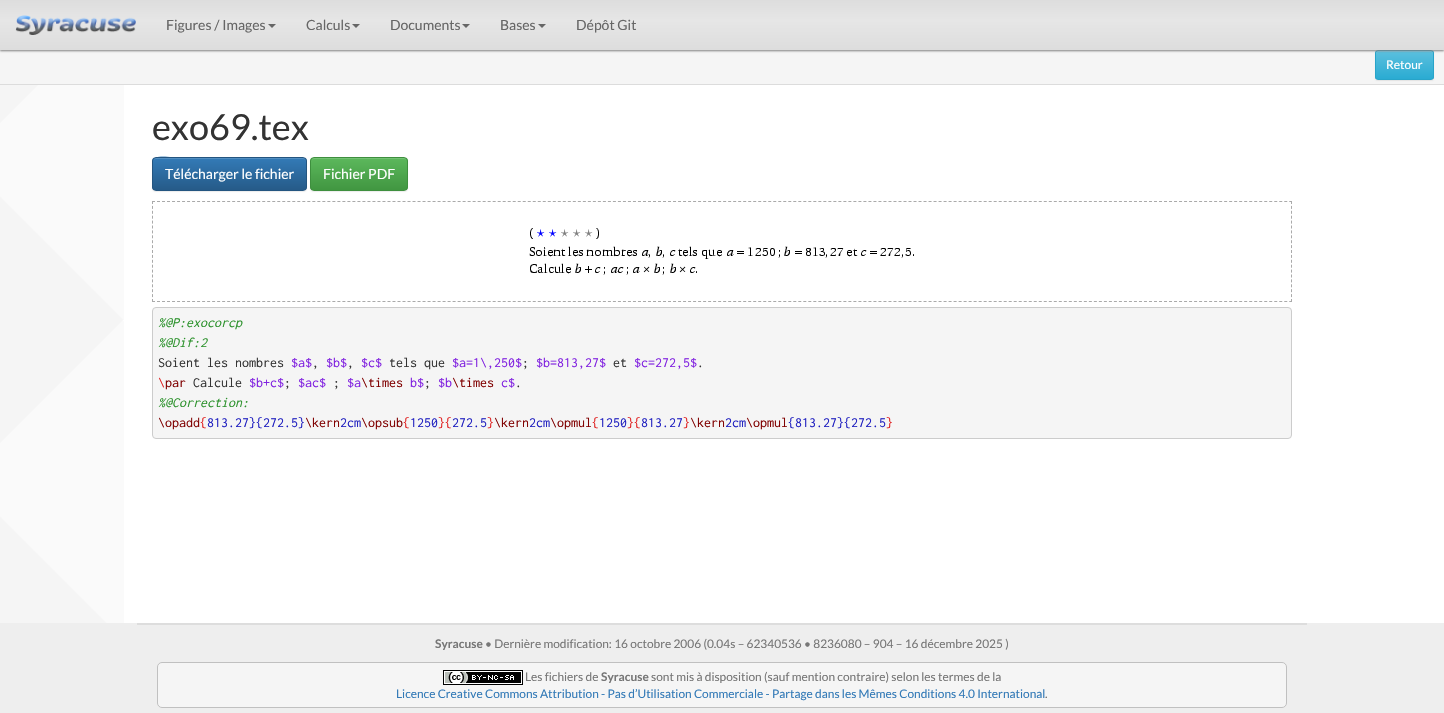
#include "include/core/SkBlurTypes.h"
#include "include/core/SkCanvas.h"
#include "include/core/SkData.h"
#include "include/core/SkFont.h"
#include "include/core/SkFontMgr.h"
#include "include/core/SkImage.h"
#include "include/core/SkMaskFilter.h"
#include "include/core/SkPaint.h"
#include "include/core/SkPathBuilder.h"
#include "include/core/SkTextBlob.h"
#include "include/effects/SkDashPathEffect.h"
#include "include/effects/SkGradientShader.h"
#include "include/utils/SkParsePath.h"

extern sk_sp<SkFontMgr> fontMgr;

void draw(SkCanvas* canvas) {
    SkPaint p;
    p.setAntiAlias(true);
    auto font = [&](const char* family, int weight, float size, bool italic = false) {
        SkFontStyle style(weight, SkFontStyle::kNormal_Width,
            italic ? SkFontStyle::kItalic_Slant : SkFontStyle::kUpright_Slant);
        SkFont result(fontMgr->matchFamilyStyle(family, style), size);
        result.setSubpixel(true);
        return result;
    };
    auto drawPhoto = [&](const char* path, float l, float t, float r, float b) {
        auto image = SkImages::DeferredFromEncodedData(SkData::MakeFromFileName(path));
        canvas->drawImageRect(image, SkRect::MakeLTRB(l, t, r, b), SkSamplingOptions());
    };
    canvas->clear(0xFFFFFFFF);
    drawPhoto("media/1.png", 0, 85, 124, 623);
    p.setColor(0xFFF5F5F5);
    canvas->drawRect(SkRect::MakeLTRB(0, 50, 1444, 84), p);
    p.setColor(0x12000000);
    p.setMaskFilter(SkMaskFilter::MakeBlur(kNormal_SkBlurStyle, 0.5f));
    canvas->drawRoundRect(SkRect::MakeLTRB(1375, 51, 1434, 81), 3, 3, p);
    p.setMaskFilter(nullptr);
    canvas->save();
    canvas->clipPath(SkPathBuilder().moveTo(1378, 50).lineTo(1431, 50).cubicTo(1432.5f, 50, 1434, 51.5f, 1434, 53).lineTo(1434, 77).cubicTo(1434, 78.5f, 1432.5f, 80, 1431, 80).lineTo(1378, 80).cubicTo(1376.5f, 80, 1375, 78.5f, 1375, 77).lineTo(1375, 53).cubicTo(1375, 51.5f, 1376.5f, 50, 1378, 50).close().detach(), true);
    {
        const SkColor colors[] = {0xFF5BC0DE, 0xFF2AABD2};
        const float stops[] = {0, 1};
        const SkPoint ends[] = {{1405, 51}, {1405, 79}};
        p.setShader(SkGradientShader::MakeLinear(ends, colors, stops, 2, SkTileMode::kClamp));
        p.setAlpha(255);
    }
    canvas->drawRect(SkRect::MakeLTRB(1375, 51, 1434, 79), p);
    canvas->restore();
    p.setShader(nullptr);
    p.setColor(0xFF73C9E3);
    canvas->drawPath(SkPathBuilder().moveTo(1378, 52).lineTo(1431, 52).cubicTo(1432, 52, 1433, 53, 1433, 54).cubicTo(1433, 49, 1426, 51, 1422, 51).lineTo(1387, 51).cubicTo(1383, 51, 1376, 49, 1376, 54).cubicTo(1376, 53, 1377, 52, 1378, 52).close().detach(), p);
    p.setStyle(SkPaint::kStroke_Style);
    p.setStrokeWidth(1);
    p.setColor(0xFF28A4C9);
    canvas->drawRoundRect(SkRect::MakeLTRB(1375.5f, 50.5f, 1433.5f, 79.5f), 2.5f, 2.5f, p);
    p.setStyle(SkPaint::kFill_Style);
    p.setColor(0xFF808080);
    p.setMaskFilter(SkMaskFilter::MakeBlur(kNormal_SkBlurStyle, 1));
    canvas->drawRect(SkRect::MakeLTRB(0, 1, 1444, 51), p);
    p.setMaskFilter(nullptr);
    {
        const SkColor colors[] = {0xFFDDDDDD, 0xFFE6E6E6, 0xFFDDDDDD};
        const float stops[] = {0, 0.4f, 1};
        const SkPoint ends[] = {{722, 0}, {722, 50}};
        p.setShader(SkGradientShader::MakeLinear(ends, colors, stops, 3, SkTileMode::kClamp));
        p.setAlpha(255);
    }
    canvas->drawRect(SkRect::MakeLTRB(0, 0, 1444, 50), p);
    drawPhoto("media/2.png", 15, 15, 136, 35);
    auto font1 = font("Lato", 400, 14);
    p.setShader(nullptr);
    p.setColor(0xFF666666);
    canvas->drawString("Figures / Images", 166, 30, font1, p);
    canvas->drawPath(SkPathBuilder().moveTo(268, 24).lineTo(276, 24).lineTo(272, 28).close().detach(), p);
    canvas->drawString("Calculs", 306, 30, font1, p);
    canvas->drawPath(SkPathBuilder().moveTo(352, 24).lineTo(360, 24).lineTo(356, 28).close().detach(), p);
    canvas->drawString("Documents", 390, 30, font1, p);
    canvas->drawPath(SkPathBuilder().moveTo(462, 24).lineTo(470, 24).lineTo(466, 28).close().detach(), p);
    canvas->drawString("Bases", 500, 30, font1, p);
    canvas->drawPath(SkPathBuilder().moveTo(538, 24).lineTo(546, 24).lineTo(542, 28).close().detach(), p);
    canvas->drawString("Dépôt Git", 576, 30, font1, p);
    p.setColor(0xFFDCDCDC);
    canvas->drawRect(SkRect::MakeLTRB(0, 84, 1444, 85), p);
    auto font2 = font("Lato", 400, 12);
    p.setColor(0xFFFFFFFF);
    canvas->drawString("Retour", 1386, 69, font2, p);
    auto font3 = font("Lato", 400, 36);
    p.setColor(0xFF333333);
    canvas->drawString("exo69.tex", 152, 140, font3, p);
    p.setColor(0x12000000);
    p.setMaskFilter(SkMaskFilter::MakeBlur(kNormal_SkBlurStyle, 0.5f));
    canvas->drawRoundRect(SkRect::MakeLTRB(152, 158, 307, 192), 4, 4, p);
    p.setMaskFilter(nullptr);
    canvas->save();
    canvas->clipPath(SkPathBuilder().moveTo(156, 157).lineTo(303, 157).cubicTo(305, 157, 307, 159, 307, 161).lineTo(307, 187).cubicTo(307, 189, 305, 191, 303, 191).lineTo(156, 191).cubicTo(154, 191, 152, 189, 152, 187).lineTo(152, 161).cubicTo(152, 159, 154, 157, 156, 157).close().detach(), true);
    {
        const SkColor colors[] = {0xFF337AB7, 0xFF265A88};
        const float stops[] = {0, 1};
        const SkPoint ends[] = {{230, 158}, {230, 190}};
        p.setShader(SkGradientShader::MakeLinear(ends, colors, stops, 2, SkTileMode::kClamp));
        p.setAlpha(255);
    }
    canvas->drawRect(SkRect::MakeLTRB(152, 158, 307, 190), p);
    canvas->restore();
    p.setShader(nullptr);
    p.setColor(0xFF528EC1);
    canvas->drawPath(SkPathBuilder().moveTo(156, 159).lineTo(303, 159).cubicTo(305, 159, 306, 160, 306, 162).cubicTo(306, 160, 306, 159, 304, 158).lineTo(180, 158).cubicTo(173, 158, 153, 153, 153, 162).cubicTo(153, 160, 154, 159, 156, 159).close().detach(), p);
    p.setStyle(SkPaint::kStroke_Style);
    p.setColor(0xFF245580);
    canvas->drawRoundRect(SkRect::MakeLTRB(152.5f, 157.5f, 306.5f, 190.5f), 3.5f, 3.5f, p);
    p.setStyle(SkPaint::kFill_Style);
    p.setColor(0xFFFFFFFF);
    canvas->drawString("Télécharger le fichier", 165, 179, font1, p);
    p.setColor(0x12000000);
    p.setMaskFilter(SkMaskFilter::MakeBlur(kNormal_SkBlurStyle, 0.5f));
    canvas->drawRoundRect(SkRect::MakeLTRB(310, 158, 408, 192), 4, 4, p);
    p.setMaskFilter(nullptr);
    canvas->save();
    canvas->clipPath(SkPathBuilder().moveTo(314, 157).lineTo(404, 157).cubicTo(406, 157, 408, 159, 408, 161).lineTo(408, 187).cubicTo(408, 189, 406, 191, 404, 191).lineTo(314, 191).cubicTo(312, 191, 310, 189, 310, 187).lineTo(310, 161).cubicTo(310, 159, 312, 157, 314, 157).close().detach(), true);
    {
        const SkColor colors[] = {0xFF5CB85C, 0xFF419641};
        const float stops[] = {0, 1};
        const SkPoint ends[] = {{359, 158}, {359, 190}};
        p.setShader(SkGradientShader::MakeLinear(ends, colors, stops, 2, SkTileMode::kClamp));
        p.setAlpha(255);
    }
    canvas->drawRect(SkRect::MakeLTRB(310, 158, 408, 190), p);
    canvas->restore();
    p.setShader(nullptr);
    p.setColor(0xFF74C274);
    canvas->drawPath(SkPathBuilder().moveTo(314, 159).lineTo(404, 159).cubicTo(406, 159, 407, 160, 407, 162).cubicTo(407, 154, 392, 158, 389, 158).lineTo(329, 158).cubicTo(326, 158, 311, 154, 311, 162).cubicTo(311, 160, 312, 159, 314, 159).close().detach(), p);
    p.setStyle(SkPaint::kStroke_Style);
    p.setColor(0xFF3E8F3E);
    canvas->drawRoundRect(SkRect::MakeLTRB(310.5f, 157.5f, 407.5f, 190.5f), 3.5f, 3.5f, p);
    p.setStyle(SkPaint::kFill_Style);
    p.setColor(0xFFFFFFFF);
    canvas->drawString("Fichier PDF", 323, 179, font1, p);
    p.setStyle(SkPaint::kStroke_Style);
    p.setColor(0xFFAAAAAA);
    p.setPathEffect(SkDashPathEffect::Make({{3, 2.01f}}, 0));
    canvas->drawPath(SkPathBuilder().moveTo(152, 201.5f).lineTo(1292, 201.5f).detach(), p);
    p.setPathEffect(nullptr);
    p.setPathEffect(SkDashPathEffect::Make({{3, 1.9f}}, 0));
    canvas->drawPath(SkPathBuilder().moveTo(1291.5f, 201).lineTo(1291.5f, 302).detach(), p);
    p.setPathEffect(nullptr);
    p.setPathEffect(SkDashPathEffect::Make({{3, 2.01f}}, 0));
    canvas->drawPath(SkPathBuilder().moveTo(152, 301.5f).lineTo(1292, 301.5f).detach(), p);
    p.setPathEffect(nullptr);
    p.setPathEffect(SkDashPathEffect::Make({{3, 1.9f}}, 0));
    canvas->drawPath(SkPathBuilder().moveTo(152.5f, 201).lineTo(152.5f, 302).detach(), p);
    p.setPathEffect(nullptr);
    drawPhoto("media/3.png", 529, 228, 914, 275);
    p.setStyle(SkPaint::kFill_Style);
    p.setColor(0xFFF5F5F5);
    canvas->drawRoundRect(SkRect::MakeLTRB(152.5f, 307.5f, 1291.5f, 438.5f), 3.5f, 3.5f, p);
    p.setStyle(SkPaint::kStroke_Style);
    p.setColor(0xFFCCCCCC);
    canvas->drawRoundRect(SkRect::MakeLTRB(152.5f, 307.5f, 1291.5f, 438.5f), 3.5f, 3.5f, p);
    auto font4 = font("Inconsolata", 400, 14, true);
    p.setStyle(SkPaint::kFill_Style);
    p.setColor(0xFF2C922C);
    canvas->drawString("%@P:exocorcp", 158, 327, font4, p);
    canvas->drawString("%@Dif:2", 158, 347, font4, p);
    auto font5 = font("Inconsolata", 400, 14);
    p.setColor(0xFF333333);
    canvas->drawString("Soient les nombres", 158, 367, font5, p);
    p.setColor(0xFF8020E0);
    canvas->drawString("$a$", 291, 367, font5, p);
    p.setColor(0xFF333333);
    canvas->drawString(",", 312, 367, font5, p);
    p.setColor(0xFF8020E0);
    canvas->drawString("$b$", 326, 367, font5, p);
    p.setColor(0xFF333333);
    canvas->drawString(",", 347, 367, font5, p);
    p.setColor(0xFF8020E0);
    canvas->drawString("$c$", 361, 367, font5, p);
    p.setColor(0xFF333333);
    canvas->drawString("tels que", 389, 367, font5, p);
    p.setColor(0xFF8020E0);
    canvas->drawString("$a=1\\,250$", 452, 367, font5, p);
    p.setColor(0xFF333333);
    canvas->drawString(";", 522, 367, font5, p);
    p.setColor(0xFF8020E0);
    canvas->drawString("$b=813,27$", 536, 367, font5, p);
    p.setColor(0xFF333333);
    canvas->drawString("et", 613, 367, font5, p);
    p.setColor(0xFF8020E0);
    canvas->drawString("$c=272,5$", 634, 367, font5, p);
    p.setColor(0xFF333333);
    canvas->drawString(".", 697, 367, font5, p);
    p.setColor(0xFFE02020);
    canvas->drawString("\\", 158, 387, font5, p);
    p.setColor(0xFF800000);
    canvas->drawString("par", 165, 387, font5, p);
    p.setColor(0xFF333333);
    canvas->drawString("Calcule", 193, 387, font5, p);
    p.setColor(0xFF8020E0);
    canvas->drawString("$b+c$", 249, 387, font5, p);
    p.setColor(0xFF333333);
    canvas->drawString(";", 284, 387, font5, p);
    p.setColor(0xFF8020E0);
    canvas->drawString("$ac$", 298, 387, font5, p);
    p.setColor(0xFF333333);
    canvas->drawString(";", 333, 387, font5, p);
    p.setColor(0xFF8020E0);
    canvas->drawString("$a", 347, 387, font5, p);
    p.setColor(0xFF800000);
    canvas->drawString("\\times", 361, 387, font5, p);
    p.setColor(0xFF8020E0);
    canvas->drawString("b$", 410, 387, font5, p);
    p.setColor(0xFF333333);
    canvas->drawString(";", 424, 387, font5, p);
    p.setColor(0xFF8020E0);
    canvas->drawString("$b", 438, 387, font5, p);
    p.setColor(0xFF800000);
    canvas->drawString("\\times", 452, 387, font5, p);
    p.setColor(0xFF8020E0);
    canvas->drawString("c$", 501, 387, font5, p);
    p.setColor(0xFF333333);
    canvas->drawString(".", 515, 387, font5, p);
    p.setColor(0xFF2C922C);
    canvas->drawString("%@Correction:", 158, 407, font4, p);
    p.setColor(0xFF800000);
    canvas->drawString("\\opadd", 158, 427, font5, p);
    p.setColor(0xFFE02020);
    canvas->drawString("{", 200, 427, font5, p);
    p.setColor(0xFF2020C0);
    canvas->drawString("813.27}{272.5}", 207, 427, font5, p);
    p.setColor(0xFF800000);
    canvas->drawString("\\kern", 305, 427, font5, p);
    p.setColor(0xFF2020C0);
    canvas->drawString("2cm", 340, 427, font5, p);
    p.setColor(0xFF800000);
    canvas->drawString("\\opsub", 361, 427, font5, p);
    p.setColor(0xFFE02020);
    canvas->drawString("{", 403, 427, font5, p);
    p.setColor(0xFF2020C0);
    canvas->drawString("1250", 410, 427, font5, p);
    p.setColor(0xFFE02020);
    canvas->drawString("}{", 438, 427, font5, p);
    p.setColor(0xFF2020C0);
    canvas->drawString("272.5", 452, 427, font5, p);
    p.setColor(0xFFE02020);
    canvas->drawString("}", 487, 427, font5, p);
    p.setColor(0xFF800000);
    canvas->drawString("\\kern", 494, 427, font5, p);
    p.setColor(0xFF2020C0);
    canvas->drawString("2cm", 529, 427, font5, p);
    p.setColor(0xFF800000);
    canvas->drawString("\\opmul", 550, 427, font5, p);
    p.setColor(0xFFE02020);
    canvas->drawString("{", 592, 427, font5, p);
    p.setColor(0xFF2020C0);
    canvas->drawString("1250", 599, 427, font5, p);
    p.setColor(0xFFE02020);
    canvas->drawString("}{", 627, 427, font5, p);
    p.setColor(0xFF2020C0);
    canvas->drawString("813.27", 641, 427, font5, p);
    p.setColor(0xFFE02020);
    canvas->drawString("}", 683, 427, font5, p);
    p.setColor(0xFF800000);
    canvas->drawString("\\kern", 690, 427, font5, p);
    p.setColor(0xFF2020C0);
    canvas->drawString("2cm", 725, 427, font5, p);
    p.setColor(0xFF800000);
    canvas->drawString("\\opmul", 746, 427, font5, p);
    p.setColor(0xFF2020C0);
    canvas->drawString("{813.27}{272.5", 788, 427, font5, p);
    p.setColor(0xFFE02020);
    canvas->drawString("}", 886, 427, font5, p);
    p.setColor(0xFFEEEEEE);
    canvas->drawRect(SkRect::MakeLTRB(0, 623, 1444, 713), p);
    p.setColor(0xFFDDDDDD);
    canvas->drawRect(SkRect::MakeLTRB(137, 623, 1307, 625), p);
    auto font6 = font("Lato", 700, 11.9f);
    p.setColor(0xFF777777);
    canvas->drawString("Syracuse", 435, 648, font6, p);
    auto font7 = font("Lato", 400, 11.9f);
    canvas->drawString("• Dernière modification : 16 octobre 2006 (0.04s – 62340536 • 8236080 – 904 – 16 décembre 2025 )", 485, 648, font7, p);
    p.setColor(0xFFF5F5F5);
    canvas->drawRoundRect(SkRect::MakeLTRB(157.5f, 662.5f, 1286.5f, 707.5f), 4.5f, 4.5f, p);
    p.setStyle(SkPaint::kStroke_Style);
    p.setColor(0xFFC0C0C0);
    canvas->drawRoundRect(SkRect::MakeLTRB(157.5f, 662.5f, 1286.5f, 707.5f), 4.5f, 4.5f, p);
    drawPhoto("media/4.png", 443, 670, 523, 685);
    p.setStyle(SkPaint::kFill_Style);
    p.setColor(0xFF777777);
    canvas->drawString("Les fichiers de", 525, 681, font7, p);
    canvas->drawString("Syracuse", 601, 681, font6, p);
    canvas->drawString("sont mis à disposition (sauf mention contraire) selon les termes de la", 651, 681, font7, p);
    p.setColor(0xFF337AB7);
    canvas->drawString("Licence Creative Commons Attribution - Pas d’Utilisation Commerciale - Partage dans les Mêmes Conditions 4.0 International", 396, 698, font7, p);
    p.setColor(0xFF777777);
    canvas->drawString(".", 1045, 698, font7, p);
}
